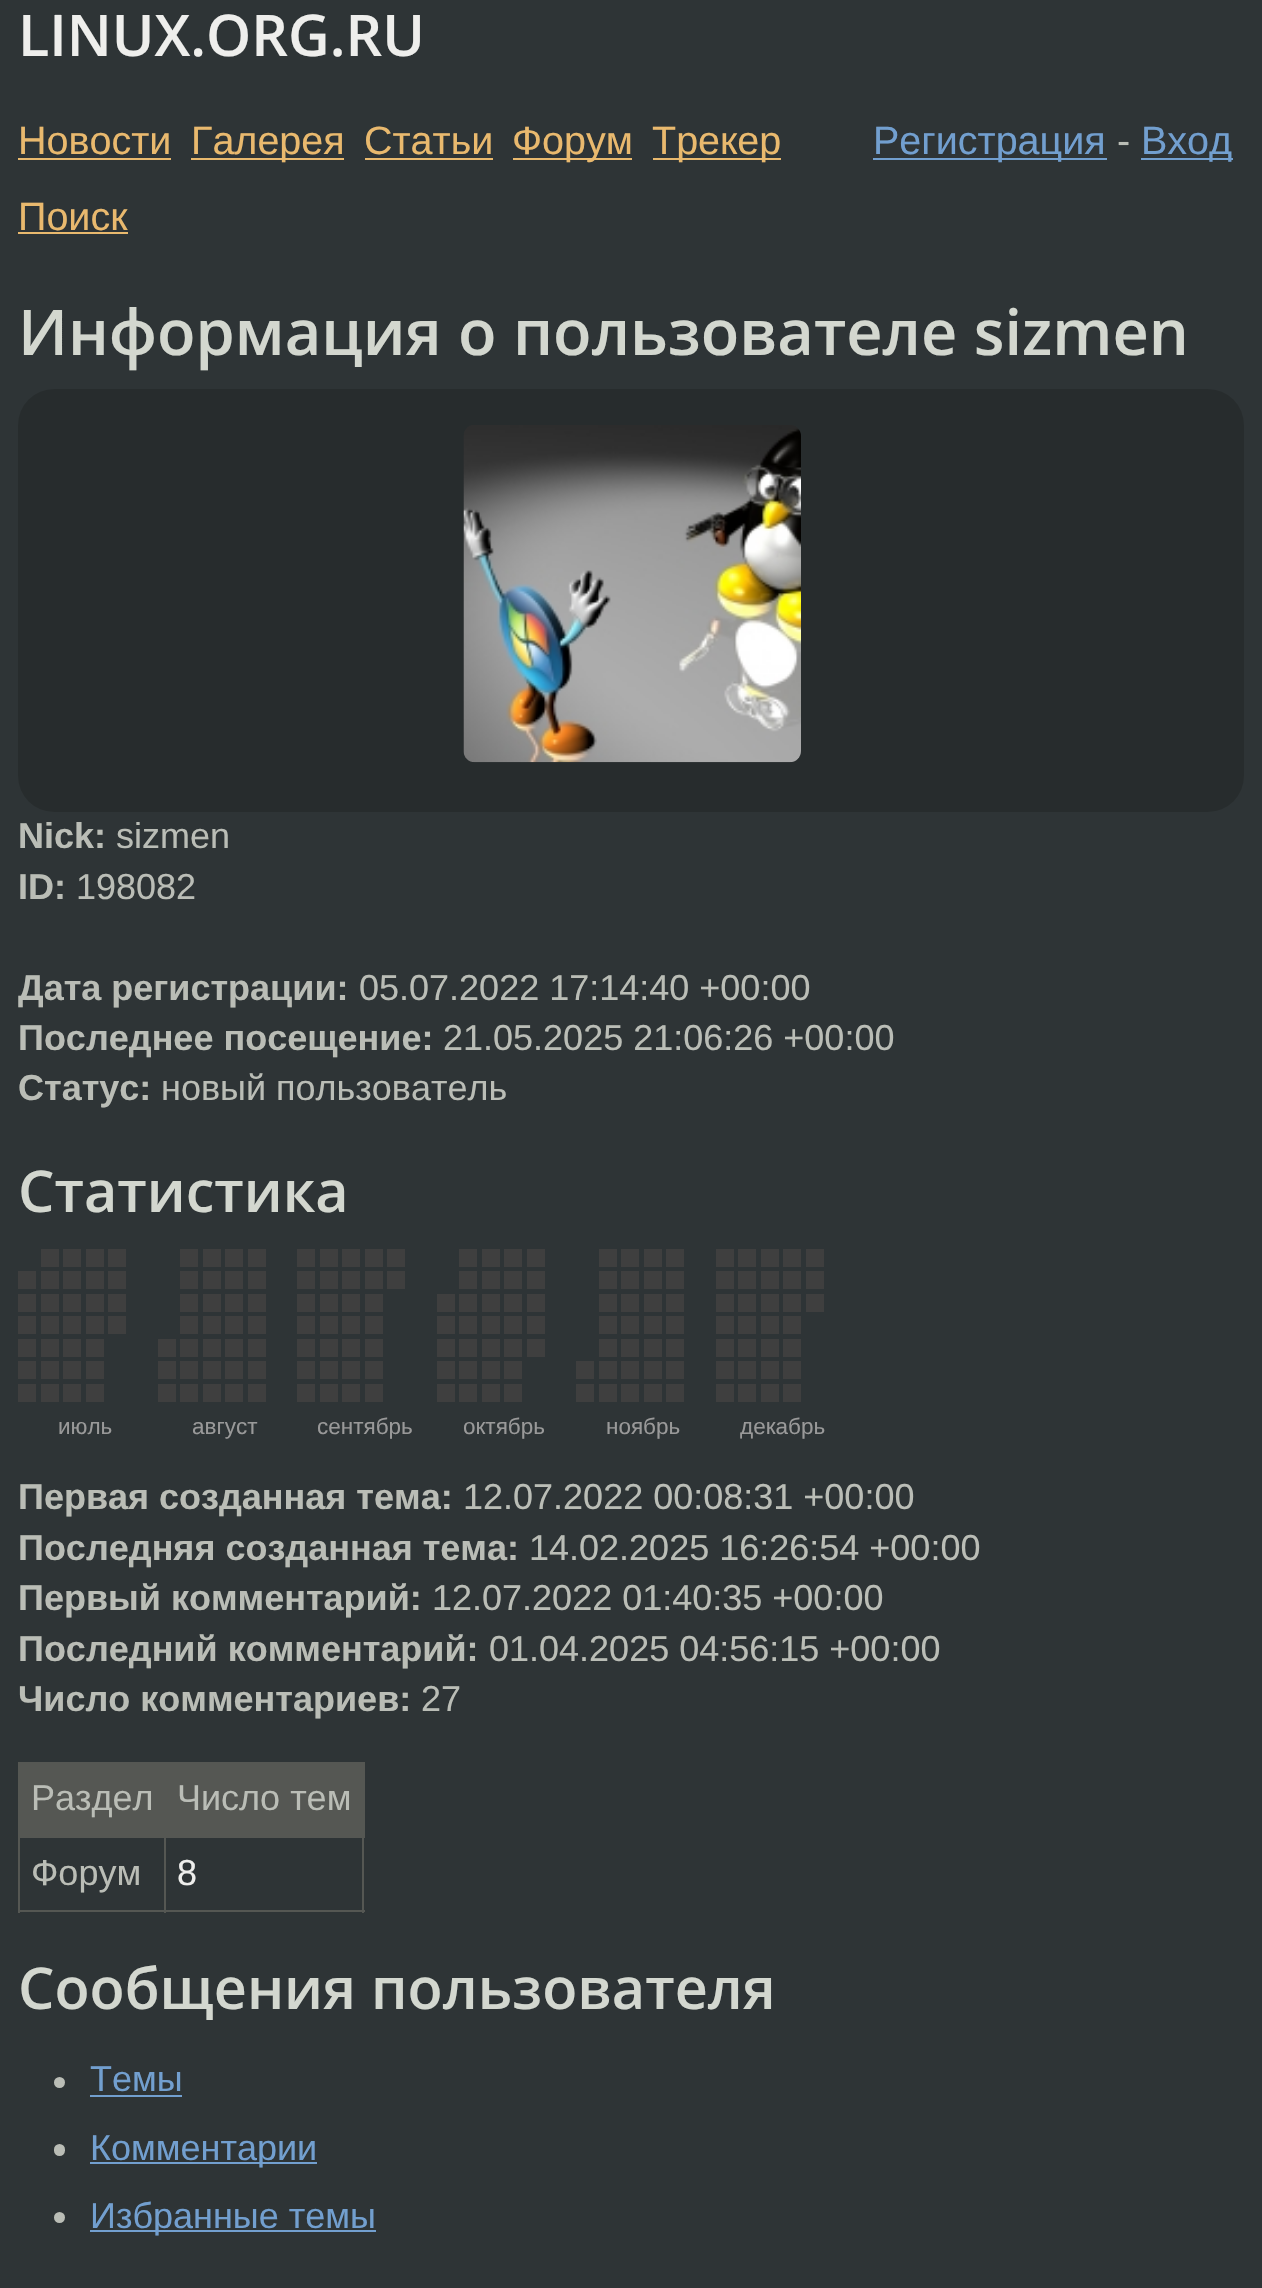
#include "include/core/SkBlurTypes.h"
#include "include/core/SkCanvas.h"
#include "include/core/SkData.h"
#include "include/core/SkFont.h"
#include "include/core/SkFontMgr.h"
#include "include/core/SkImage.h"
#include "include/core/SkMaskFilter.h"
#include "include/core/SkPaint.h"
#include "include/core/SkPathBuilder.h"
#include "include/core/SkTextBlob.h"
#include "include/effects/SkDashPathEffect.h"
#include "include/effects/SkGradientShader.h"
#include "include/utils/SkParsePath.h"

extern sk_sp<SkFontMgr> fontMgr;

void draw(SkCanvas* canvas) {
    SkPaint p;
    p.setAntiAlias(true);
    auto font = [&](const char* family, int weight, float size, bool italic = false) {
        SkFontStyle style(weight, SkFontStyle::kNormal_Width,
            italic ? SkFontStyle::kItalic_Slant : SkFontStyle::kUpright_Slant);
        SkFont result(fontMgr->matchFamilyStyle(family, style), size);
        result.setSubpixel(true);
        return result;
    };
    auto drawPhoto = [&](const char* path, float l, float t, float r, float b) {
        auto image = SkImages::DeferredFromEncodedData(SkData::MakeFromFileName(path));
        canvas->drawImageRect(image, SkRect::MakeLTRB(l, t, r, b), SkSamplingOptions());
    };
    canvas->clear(0xFF2E3436);
    auto font1 = font("Open Sans", 600, 57.5f);
    p.setColor(0xFFEEEEEC);
    canvas->drawString("LINUX.ORG.RU", 18, 56, font1, p);
    auto font2 = font("Liberation Sans", 400, 39.5f);
    p.setColor(0xFFE9B96E);
    canvas->drawString("Новости", 18, 154, font2, p);
    canvas->drawRect(SkRect::MakeLTRB(18, 158, 171, 160), p);
    canvas->drawRect(SkRect::MakeLTRB(191, 158, 344, 160), p);
    canvas->drawString("Галерея", 191, 154, font2, p);
    canvas->drawString("Статьи", 364, 154, font2, p);
    canvas->drawRect(SkRect::MakeLTRB(365, 158, 493, 160), p);
    canvas->drawRect(SkRect::MakeLTRB(513, 158, 632, 160), p);
    canvas->drawString("Форум", 512, 154, font2, p);
    canvas->drawRect(SkRect::MakeLTRB(653, 158, 781, 160), p);
    canvas->drawString("Трекер", 652, 154, font2, p);
    canvas->drawString("Поиск", 18, 230, font2, p);
    canvas->drawRect(SkRect::MakeLTRB(18, 232, 128, 234), p);
    p.setColor(0xFF729FCF);
    canvas->drawRect(SkRect::MakeLTRB(873, 158, 1107, 160), p);
    canvas->drawString("Регистрация", 873, 154, font2, p);
    p.setColor(0xFFBABDB6);
    canvas->drawString("-", 1117, 154, font2, p);
    p.setColor(0xFF729FCF);
    canvas->drawRect(SkRect::MakeLTRB(1141, 158, 1233, 160), p);
    canvas->drawString("Вход", 1141, 154, font2, p);
    auto font3 = font("Open Sans", 600, 63.1f);
    p.setColor(0xFFD3D7CF);
    canvas->drawString("Информация о пользователе sizmen", 18, 355, font3, p);
    p.setColor(0xFF272C2D);
    canvas->drawRoundRect(SkRect::MakeLTRB(18, 389, 1244, 812), 36, 36, p);
    drawPhoto("media/1.png", 463, 425, 801, 763);
    auto font4 = font("Liberation Sans", 700, 36);
    p.setColor(0xFFBABDB6);
    canvas->drawString("Nick:", 18, 848, font4, p);
    auto font5 = font("Liberation Sans", 400, 36);
    canvas->drawString("sizmen", 116, 848, font5, p);
    canvas->drawString("ID:", 18, 899, font4, p);
    canvas->drawString("198082", 76, 899, font5, p);
    canvas->drawString("Дата регистрации:", 18, 1000, font4, p);
    canvas->drawString("05.07.2022 17:14:40 +00:00", 359, 1000, font5, p);
    canvas->drawString("Последнее посещение:", 18, 1050, font4, p);
    canvas->drawString("21.05.2025 21:06:26 +00:00", 443, 1050, font5, p);
    canvas->drawString("Статус:", 18, 1100, font4, p);
    canvas->drawString("новый пользователь", 161, 1100, font5, p);
    p.setColor(0xFFD3D7CF);
    canvas->drawString("Статистика", 18, 1212, font1, p);
    drawPhoto("media/2.png", 18, 1249, 824, 1402);
    auto font6 = font("Liberation Sans", 400, 22.5f);
    p.setColor(0xFF999999);
    {
        const struct { const char* s; float x, y; } items[] = {
            {"июль", 58, 1434},
            {"август", 192, 1434},
            {"сентябрь", 317, 1434},
            {"октябрь", 463, 1434},
            {"ноябрь", 606, 1434},
            {"декабрь", 740, 1434},
        };
        for (auto [s, x, y] : items) {
            canvas->drawString(s, x, y, font6, p);
        }
    }
    p.setColor(0xFFBABDB6);
    canvas->drawString("Первая созданная тема:", 18, 1509, font4, p);
    canvas->drawString("12.07.2022 00:08:31 +00:00", 463, 1509, font5, p);
    canvas->drawString("Последняя созданная тема:", 18, 1560, font4, p);
    canvas->drawString("14.02.2025 16:26:54 +00:00", 529, 1560, font5, p);
    canvas->drawString("Первый комментарий:", 18, 1610, font4, p);
    canvas->drawString("12.07.2022 01:40:35 +00:00", 432, 1610, font5, p);
    canvas->drawString("Последний комментарий:", 18, 1661, font4, p);
    canvas->drawString("01.04.2025 04:56:15 +00:00", 489, 1661, font5, p);
    canvas->drawString("Число комментариев:", 18, 1711, font4, p);
    canvas->drawString("27", 421, 1711, font5, p);
    {
        const struct { float l, t, r, b; SkColor color; } items[] = {
            {20, 1762, 365, 1836, 0xFF555753},
            {164, 1836, 365, 1838, 0xFF555753},
            {362, 1836, 364, 1913, 0xFF555753},
            {164, 1910, 365, 1912, 0xFF555753},
            {164, 1836, 166, 1913, 0xFF555753},
            {18, 1836, 167, 1838, 0xFF555753},
            {18, 1910, 167, 1912, 0xFF555753},
            {18, 1836, 20, 1913, 0xFF555753},
            {18, 1762, 20, 1838, 0xFF555753},
        };
        for (auto [l, t, r, b, color] : items) {
            p.setColor(color);
            canvas->drawRect(SkRect::MakeLTRB(l, t, r, b), p);
        }
    }
    p.setColor(0xFFBABDB6);
    {
        const struct { const char* s; float x, y; } items[] = {
            {"Раздел", 31, 1810},
            {"Число тем", 177, 1810},
            {"Форум", 31, 1885},
        };
        for (auto [s, x, y] : items) {
            canvas->drawString(s, x, y, font5, p);
        }
    }
    p.setColor(0xFFEEEEEC);
    canvas->drawString("8", 177, 1885, font5, p);
    p.setColor(0xFFD3D7CF);
    canvas->drawString("Сообщения пользователя", 18, 2009, font1, p);
    p.setColor(0xFFBABDB6);
    canvas->drawCircle(59.5f, 2082.5f, 5.5f, p);
    p.setColor(0xFF729FCF);
    canvas->drawString("Темы", 90, 2091, font5, p);
    canvas->drawRect(SkRect::MakeLTRB(90, 2095, 182, 2097), p);
    p.setColor(0xFFBABDB6);
    canvas->drawRoundRect(SkRect::MakeLTRB(54, 2144, 65, 2156), 5.5f, 5.5f, p);
    p.setColor(0xFF729FCF);
    canvas->drawRect(SkRect::MakeLTRB(90, 2162, 317, 2164), p);
    canvas->drawString("Комментарии", 90, 2160, font5, p);
    p.setColor(0xFFBABDB6);
    canvas->drawCircle(59.5f, 2217.5f, 5.5f, p);
    p.setColor(0xFF729FCF);
    canvas->drawRect(SkRect::MakeLTRB(90, 2230, 376, 2232), p);
    canvas->drawString("Избранные темы", 90, 2228, font5, p);
}
